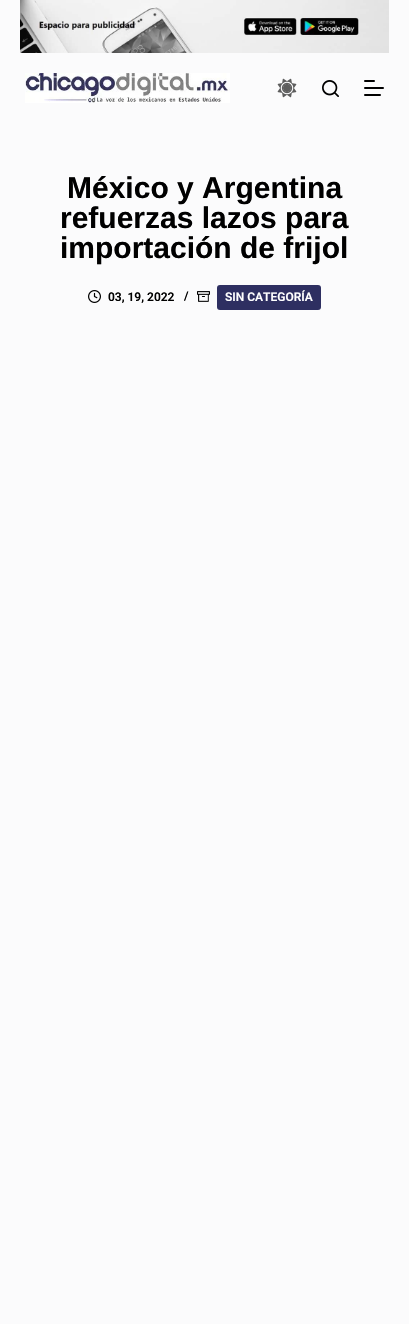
#include "include/core/SkBlurTypes.h"
#include "include/core/SkCanvas.h"
#include "include/core/SkData.h"
#include "include/core/SkFont.h"
#include "include/core/SkFontMgr.h"
#include "include/core/SkImage.h"
#include "include/core/SkMaskFilter.h"
#include "include/core/SkPaint.h"
#include "include/core/SkPathBuilder.h"
#include "include/core/SkTextBlob.h"
#include "include/effects/SkDashPathEffect.h"
#include "include/effects/SkGradientShader.h"
#include "include/utils/SkParsePath.h"

extern sk_sp<SkFontMgr> fontMgr;

void draw(SkCanvas* canvas) {
    SkPaint p;
    p.setAntiAlias(true);
    auto font = [&](const char* family, int weight, float size, bool italic = false) {
        SkFontStyle style(weight, SkFontStyle::kNormal_Width,
            italic ? SkFontStyle::kItalic_Slant : SkFontStyle::kUpright_Slant);
        SkFont result(fontMgr->matchFamilyStyle(family, style), size);
        result.setSubpixel(true);
        return result;
    };
    auto drawPhoto = [&](const char* path, float l, float t, float r, float b) {
        auto image = SkImages::DeferredFromEncodedData(SkData::MakeFromFileName(path));
        canvas->drawImageRect(image, SkRect::MakeLTRB(l, t, r, b), SkSamplingOptions());
    };
    canvas->clear(0xFFFBFBFC);
    drawPhoto("media/1.png", 20, 0, 389, 53);
    drawPhoto("media/2.png", 25, 73, 230, 103);
    drawPhoto("media/3.png", 277, 78, 297, 98);
    drawPhoto("media/4.png", 322, 80, 339, 97);
    p.setColor(0xFF000000);
    canvas->drawRoundRect(SkRect::MakeLTRB(364, 80, 375, 82), 1, 1, p);
    canvas->drawRoundRect(SkRect::MakeLTRB(364, 87, 384, 89), 1, 1, p);
    canvas->drawRoundRect(SkRect::MakeLTRB(364, 94, 381, 96), 1, 1, p);
    auto font1 = font("Liberation Sans", 700, 30);
    {
        const struct { const char* s; float x, y; } items[] = {
            {"México y Argentina", 67, 198},
            {"refuerzas lazos para", 60, 228},
            {"importación de frijol", 60, 258},
        };
        for (auto [s, x, y] : items) {
            canvas->drawString(s, x, y, font1, p);
        }
    }
    drawPhoto("media/5.png", 88, 290, 101, 303);
    auto font2 = font("Roboto", 600, 12);
    canvas->drawString("03, 19, 2022", 108, 301, font2, p);
    canvas->drawString("/", 184, 300, font2, p);
    drawPhoto("media/6.png", 197, 291, 210, 302);
    p.setColor(0xFF2E2F61);
    canvas->drawRoundRect(SkRect::MakeLTRB(217, 285, 321, 310), 3, 3, p);
    p.setColor(0xFFFFFFFF);
    canvas->drawString("SIN CATEGORÍA", 225, 301, font2, p);
}
